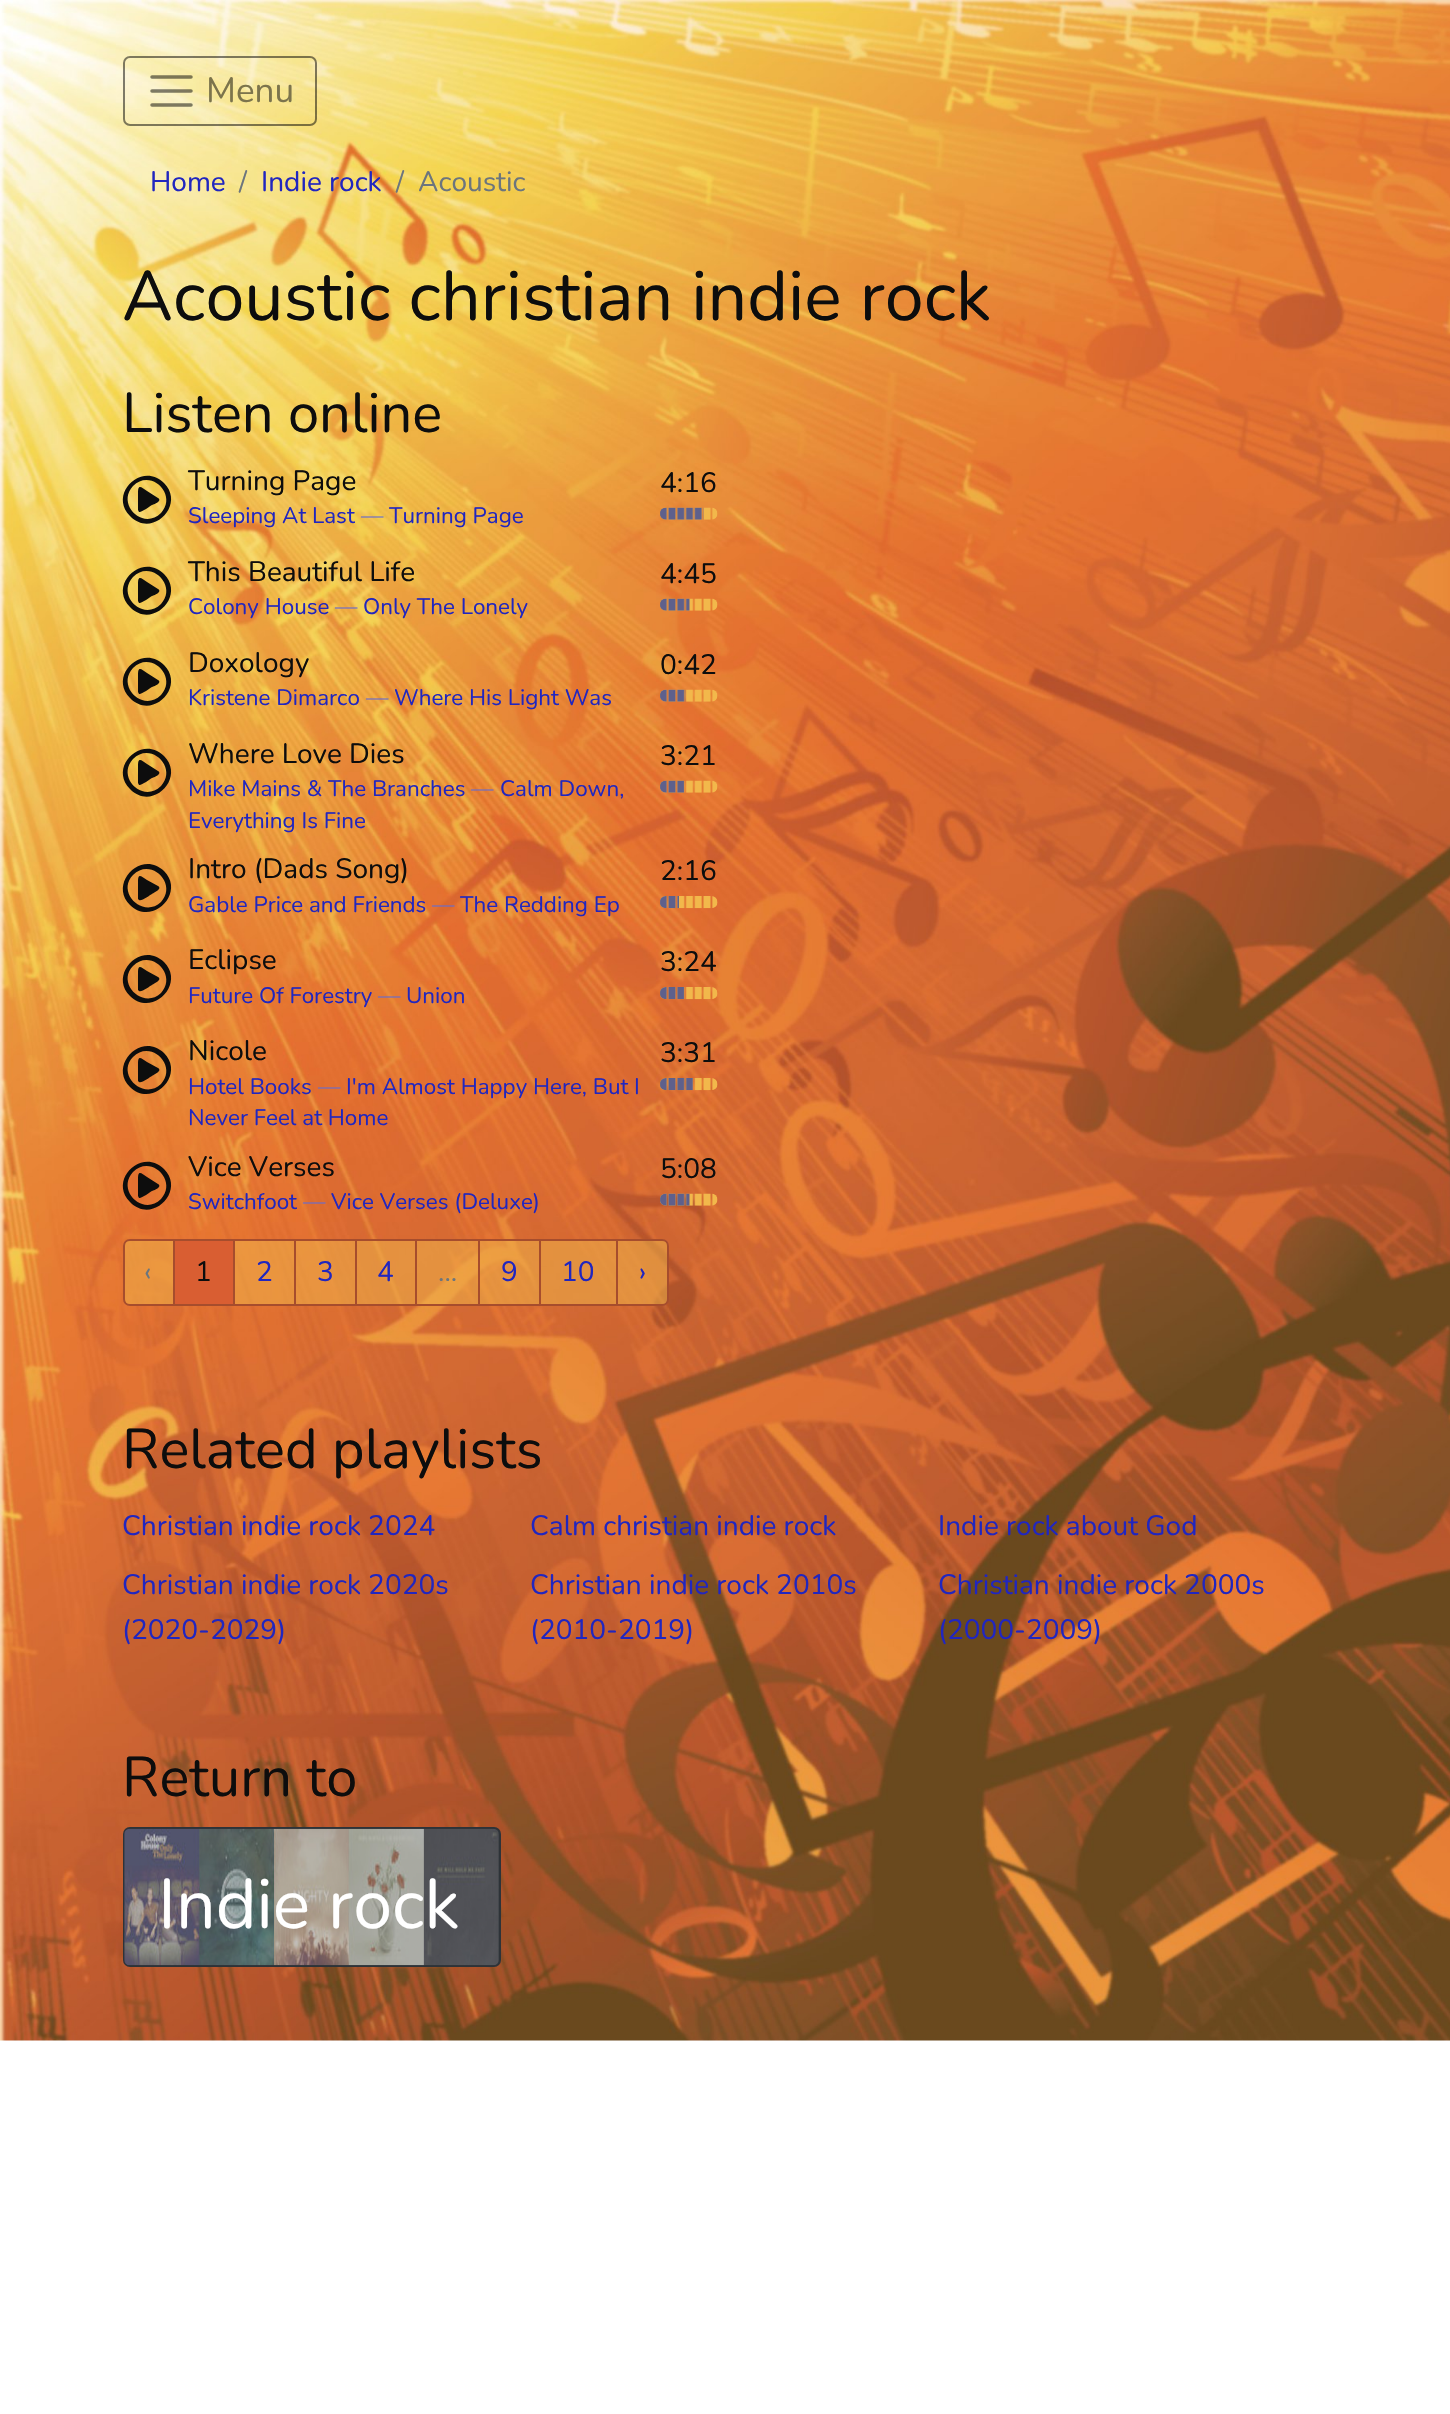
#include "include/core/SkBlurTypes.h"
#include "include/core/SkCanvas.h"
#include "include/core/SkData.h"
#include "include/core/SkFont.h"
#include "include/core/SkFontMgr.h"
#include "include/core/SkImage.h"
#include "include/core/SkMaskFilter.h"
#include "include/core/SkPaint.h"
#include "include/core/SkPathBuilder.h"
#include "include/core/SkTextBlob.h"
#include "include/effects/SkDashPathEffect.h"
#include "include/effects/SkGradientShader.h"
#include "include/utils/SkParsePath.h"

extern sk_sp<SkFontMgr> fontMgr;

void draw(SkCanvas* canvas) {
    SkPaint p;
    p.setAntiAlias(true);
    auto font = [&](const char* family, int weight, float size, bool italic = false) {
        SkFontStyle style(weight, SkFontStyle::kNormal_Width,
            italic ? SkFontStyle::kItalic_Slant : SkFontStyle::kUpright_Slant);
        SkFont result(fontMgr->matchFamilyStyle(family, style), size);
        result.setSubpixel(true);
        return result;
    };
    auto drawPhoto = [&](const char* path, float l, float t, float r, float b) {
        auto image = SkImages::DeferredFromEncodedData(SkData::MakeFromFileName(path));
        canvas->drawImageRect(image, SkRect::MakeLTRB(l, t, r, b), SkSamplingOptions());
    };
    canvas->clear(0xFFFFFFFF);
    drawPhoto("media/1.png", 0, 0, 1450, 2041);
    p.setStyle(SkPaint::kStroke_Style);
    p.setStrokeWidth(2);
    p.setColor(0x80000000);
    canvas->drawRoundRect(SkRect::MakeLTRB(124, 57, 316, 125), 6, 6, p);
    p.setStrokeWidth(3.5f);
    p.setStrokeCap(SkPaint::kRound_Cap);
    canvas->drawPath(SkPathBuilder().moveTo(152, 77).lineTo(191, 77).moveTo(152, 91).lineTo(191, 91).moveTo(152, 105).lineTo(191, 105).detach(), p);
    auto font1 = font("Nunito", 200, 35);
    p.setStyle(SkPaint::kFill_Style);
    p.setColor(0xFF7C744C);
    canvas->drawString("Menu", 206, 102, font1, p);
    auto font2 = font("Nunito", 200, 28);
    p.setColor(0xFF2126BF);
    canvas->drawString("Home", 150, 191, font2, p);
    p.setColor(0xFF6C757D);
    canvas->drawString("/", 239, 191, font2, p);
    p.setColor(0xFF2126BF);
    canvas->drawString("Indie rock", 261, 191, font2, p);
    p.setColor(0xFF6C757D);
    canvas->drawString("/", 396, 191, font2, p);
    canvas->drawString("Acoustic", 418, 191, font2, p);
    auto font3 = font("Nunito", 200, 70);
    p.setColor(0xFF0D0D0D);
    canvas->drawString("Acoustic christian indie rock", 122, 320, font3, p);
    auto font4 = font("Nunito", 200, 56);
    canvas->drawString("Listen online", 122, 432, font4, p);
    canvas->drawPath(SkPathBuilder().moveTo(158, 498).cubicTo(163, 501, 153, 505, 152, 505).cubicTo(150, 506, 141, 513, 139, 512).lineTo(138, 510).lineTo(138, 493).cubicTo(138, 484, 141, 487, 147, 491).close().moveTo(164, 483).cubicTo(186, 505, 152, 539, 130, 516).cubicTo(108, 494, 142, 461, 164, 483).close().moveTo(133, 486).cubicTo(116, 504, 143, 531, 161, 513).cubicTo(178, 495, 151, 468, 133, 486).close().detach(), p);
    canvas->drawString("Turning Page", 188, 490, font2, p);
    auto font5 = font("Nunito", 200, 22.4f);
    p.setColor(0xFF2126BF);
    canvas->drawString("Sleeping At Last", 188, 523, font5, p);
    p.setColor(0xFF686CCC);
    canvas->drawString("—", 361, 523, font5, p);
    p.setColor(0xFF2126BF);
    canvas->drawString("Turning Page", 389, 523, font5, p);
    p.setColor(0xFF0D0D0D);
    canvas->drawString("4:16", 660, 492, font2, p);
    drawPhoto("media/2.png", 660, 507, 718, 520);
    drawPhoto("media/3.png", 660, 507, 704, 520);
    canvas->drawPath(SkPathBuilder().moveTo(158, 589).cubicTo(163, 592, 153, 596, 152, 596).cubicTo(150, 597, 141, 604, 139, 603).lineTo(138, 601).lineTo(138, 584).cubicTo(138, 575, 141, 578, 147, 582).close().moveTo(164, 574).cubicTo(186, 596, 152, 630, 130, 607).cubicTo(108, 585, 142, 552, 164, 574).close().moveTo(133, 577).cubicTo(116, 595, 143, 622, 161, 604).cubicTo(178, 586, 151, 559, 133, 577).close().detach(), p);
    canvas->drawString("This Beautiful Life", 188, 581, font2, p);
    p.setColor(0xFF2126BF);
    canvas->drawString("Colony House", 188, 614, font5, p);
    p.setColor(0xFF686CCC);
    canvas->drawString("—", 335, 614, font5, p);
    p.setColor(0xFF2126BF);
    canvas->drawString("Only The Lonely", 363, 614, font5, p);
    p.setColor(0xFF0D0D0D);
    canvas->drawString("4:45", 660, 583, font2, p);
    drawPhoto("media/4.png", 660, 598, 718, 611);
    drawPhoto("media/5.png", 660, 598, 690, 611);
    canvas->drawPath(SkPathBuilder().moveTo(158, 680).cubicTo(163, 683, 153, 687, 152, 687).cubicTo(150, 688, 141, 695, 139, 694).lineTo(138, 692).lineTo(138, 675).cubicTo(138, 666, 141, 669, 147, 673).close().moveTo(164, 665).cubicTo(186, 687, 152, 721, 130, 698).cubicTo(108, 676, 142, 643, 164, 665).close().moveTo(133, 668).cubicTo(116, 686, 143, 713, 161, 695).cubicTo(178, 677, 151, 650, 133, 668).close().detach(), p);
    canvas->drawString("Doxology", 188, 672, font2, p);
    p.setColor(0xFF2126BF);
    canvas->drawString("Kristene Dimarco", 188, 705, font5, p);
    p.setColor(0xFF686CCC);
    canvas->drawString("—", 366, 705, font5, p);
    p.setColor(0xFF2126BF);
    canvas->drawString("Where His Light Was", 394, 705, font5, p);
    p.setColor(0xFF0D0D0D);
    canvas->drawString("0:42", 660, 674, font2, p);
    drawPhoto("media/6.png", 660, 689, 718, 702);
    drawPhoto("media/7.png", 660, 689, 686, 702);
    canvas->drawPath(SkPathBuilder().moveTo(158, 771).cubicTo(163, 774, 153, 778, 152, 778).cubicTo(150, 779, 141, 786, 139, 785).lineTo(138, 783).lineTo(138, 766).cubicTo(138, 757, 141, 760, 147, 764).close().moveTo(164, 756).cubicTo(186, 778, 152, 812, 130, 789).cubicTo(108, 767, 142, 734, 164, 756).close().moveTo(133, 759).cubicTo(116, 777, 143, 804, 161, 786).cubicTo(178, 768, 151, 741, 133, 759).close().detach(), p);
    canvas->drawString("Where Love Dies", 188, 763, font2, p);
    p.setColor(0xFF2126BF);
    canvas->drawString("Mike Mains & The Branches", 188, 796, font5, p);
    p.setColor(0xFF686CCC);
    canvas->drawString("—", 471, 796, font5, p);
    p.setColor(0xFF2126BF);
    canvas->drawString("Calm Down,", 500, 796, font5, p);
    canvas->drawString("Everything Is Fine", 188, 828, font5, p);
    p.setColor(0xFF0D0D0D);
    canvas->drawString("3:21", 660, 765, font2, p);
    drawPhoto("media/8.png", 660, 780, 718, 793);
    drawPhoto("media/9.png", 660, 780, 685, 793);
    canvas->drawPath(SkPathBuilder().moveTo(158, 886).cubicTo(163, 889, 153, 893, 152, 894).cubicTo(150, 895, 141, 902, 139, 900).lineTo(138, 899).lineTo(138, 881).cubicTo(138, 873, 141, 876, 147, 880).close().moveTo(164, 871).cubicTo(186, 893, 152, 927, 130, 905).cubicTo(108, 883, 142, 849, 164, 871).close().moveTo(133, 875).cubicTo(116, 892, 143, 919, 161, 902).cubicTo(178, 884, 151, 857, 133, 875).close().detach(), p);
    canvas->drawString("Intro (Dads Song)", 188, 878, font2, p);
    p.setColor(0xFF2126BF);
    canvas->drawString("Gable Price and Friends", 188, 912, font5, p);
    p.setColor(0xFF686CCC);
    canvas->drawString("—", 432, 912, font5, p);
    p.setColor(0xFF2126BF);
    canvas->drawString("The Redding Ep", 460, 912, font5, p);
    p.setColor(0xFF0D0D0D);
    canvas->drawString("2:16", 660, 880, font2, p);
    drawPhoto("media/10.png", 660, 896, 718, 909);
    drawPhoto("media/11.png", 660, 896, 679, 909);
    canvas->drawPath(SkPathBuilder().moveTo(158, 977).cubicTo(163, 980, 153, 984, 152, 985).cubicTo(150, 986, 141, 993, 139, 991).lineTo(138, 990).lineTo(138, 972).cubicTo(138, 964, 141, 967, 147, 971).close().moveTo(164, 962).cubicTo(186, 984, 152, 1018, 130, 996).cubicTo(108, 974, 142, 940, 164, 962).close().moveTo(133, 966).cubicTo(116, 983, 143, 1010, 161, 993).cubicTo(178, 975, 151, 948, 133, 966).close().detach(), p);
    canvas->drawString("Eclipse", 188, 969, font2, p);
    p.setColor(0xFF2126BF);
    canvas->drawString("Future Of Forestry", 188, 1003, font5, p);
    p.setColor(0xFF686CCC);
    canvas->drawString("—", 378, 1003, font5, p);
    p.setColor(0xFF2126BF);
    canvas->drawString("Union", 406, 1003, font5, p);
    p.setColor(0xFF0D0D0D);
    canvas->drawString("3:24", 660, 971, font2, p);
    drawPhoto("media/12.png", 660, 987, 718, 1000);
    drawPhoto("media/13.png", 660, 987, 685, 1000);
    canvas->drawPath(SkPathBuilder().moveTo(158, 1068).cubicTo(163, 1071, 153, 1075, 152, 1076).cubicTo(150, 1077, 141, 1084, 139, 1082).lineTo(138, 1081).lineTo(138, 1063).cubicTo(138, 1055, 141, 1058, 147, 1062).close().moveTo(164, 1053).cubicTo(186, 1075, 152, 1109, 130, 1087).cubicTo(108, 1065, 142, 1031, 164, 1053).close().moveTo(133, 1057).cubicTo(116, 1074, 143, 1101, 161, 1084).cubicTo(178, 1066, 151, 1039, 133, 1057).close().detach(), p);
    canvas->drawString("Nicole", 188, 1060, font2, p);
    p.setColor(0xFF2126BF);
    canvas->drawString("Hotel Books", 188, 1094, font5, p);
    p.setColor(0xFF686CCC);
    canvas->drawString("—", 318, 1094, font5, p);
    p.setColor(0xFF2126BF);
    canvas->drawString("I'm Almost Happy Here, But I", 346, 1094, font5, p);
    canvas->drawString("Never Feel at Home", 188, 1125, font5, p);
    p.setColor(0xFF0D0D0D);
    canvas->drawString("3:31", 660, 1062, font2, p);
    drawPhoto("media/14.png", 660, 1078, 718, 1091);
    drawPhoto("media/15.png", 660, 1078, 693, 1091);
    canvas->drawPath(SkPathBuilder().moveTo(158, 1184).cubicTo(163, 1187, 153, 1191, 152, 1191).cubicTo(150, 1192, 141, 1199, 139, 1198).lineTo(138, 1196).lineTo(138, 1179).cubicTo(138, 1170, 141, 1173, 147, 1177).close().moveTo(164, 1169).cubicTo(186, 1191, 152, 1225, 130, 1202).cubicTo(108, 1180, 142, 1147, 164, 1169).close().moveTo(133, 1172).cubicTo(116, 1190, 143, 1217, 161, 1199).cubicTo(178, 1181, 151, 1154, 133, 1172).close().detach(), p);
    canvas->drawString("Vice Verses", 188, 1176, font2, p);
    p.setColor(0xFF2126BF);
    canvas->drawString("Switchfoot", 188, 1209, font5, p);
    p.setColor(0xFF686CCC);
    canvas->drawString("—", 303, 1209, font5, p);
    p.setColor(0xFF2126BF);
    canvas->drawString("Vice Verses (Deluxe)", 331, 1209, font5, p);
    p.setColor(0xFF0D0D0D);
    canvas->drawString("5:08", 660, 1178, font2, p);
    drawPhoto("media/16.png", 660, 1193, 718, 1206);
    drawPhoto("media/17.png", 660, 1193, 690, 1206);
    p.setColor(0x80F2B84B);
    canvas->drawPath(SkPathBuilder().moveTo(130, 1240).lineTo(174, 1240).lineTo(174, 1305).lineTo(130, 1305).cubicTo(126.5f, 1305, 124, 1302.5f, 124, 1299).lineTo(124, 1246).cubicTo(124, 1242.5f, 126.5f, 1240, 130, 1240).close().detach(), p);
    p.setStyle(SkPaint::kStroke_Style);
    p.setStrokeWidth(2);
    p.setStrokeCap(SkPaint::kButt_Cap);
    p.setColor(0xFFA64D2D);
    canvas->drawPath(SkPathBuilder().moveTo(130, 1240).lineTo(174, 1240).lineTo(174, 1305).lineTo(130, 1305).cubicTo(126.5f, 1305, 124, 1302.5f, 124, 1299).lineTo(124, 1246).cubicTo(124, 1242.5f, 126.5f, 1240, 130, 1240).close().detach(), p);
    p.setStyle(SkPaint::kFill_Style);
    p.setColor(0xFF6C757D);
    canvas->drawString("‹", 144, 1281, font2, p);
    p.setColor(0x80F2B84B);
    canvas->drawRect(SkRect::MakeLTRB(234, 1240, 295, 1305), p);
    p.setStyle(SkPaint::kStroke_Style);
    p.setColor(0xFFA64D2D);
    canvas->drawRect(SkRect::MakeLTRB(234, 1240, 295, 1305), p);
    p.setStyle(SkPaint::kFill_Style);
    p.setColor(0xFFD95E32);
    canvas->drawRect(SkRect::MakeLTRB(174, 1240, 234, 1305), p);
    p.setStyle(SkPaint::kStroke_Style);
    p.setColor(0xFFA64D2D);
    canvas->drawRect(SkRect::MakeLTRB(174, 1240, 234, 1305), p);
    p.setStyle(SkPaint::kFill_Style);
    p.setColor(0xFF0D0D0D);
    canvas->drawString("1", 195, 1281, font2, p);
    p.setColor(0xFF2126BF);
    canvas->drawString("2", 256, 1281, font2, p);
    p.setColor(0x80F2B84B);
    canvas->drawRect(SkRect::MakeLTRB(295, 1240, 356, 1305), p);
    p.setStyle(SkPaint::kStroke_Style);
    p.setColor(0xFFA64D2D);
    canvas->drawRect(SkRect::MakeLTRB(295, 1240, 356, 1305), p);
    p.setStyle(SkPaint::kFill_Style);
    p.setColor(0xFF2126BF);
    canvas->drawString("3", 317, 1281, font2, p);
    p.setColor(0x80F2B84B);
    canvas->drawRect(SkRect::MakeLTRB(356, 1240, 416, 1305), p);
    p.setStyle(SkPaint::kStroke_Style);
    p.setColor(0xFFA64D2D);
    canvas->drawRect(SkRect::MakeLTRB(356, 1240, 416, 1305), p);
    p.setStyle(SkPaint::kFill_Style);
    p.setColor(0xFF2126BF);
    canvas->drawString("4", 377, 1281, font2, p);
    p.setColor(0x80F2B84B);
    canvas->drawRect(SkRect::MakeLTRB(416, 1240, 479, 1305), p);
    p.setStyle(SkPaint::kStroke_Style);
    p.setColor(0xFFA64D2D);
    canvas->drawRect(SkRect::MakeLTRB(416, 1240, 479, 1305), p);
    p.setStyle(SkPaint::kFill_Style);
    p.setColor(0x80F2B84B);
    canvas->drawRect(SkRect::MakeLTRB(479, 1240, 540, 1305), p);
    p.setStyle(SkPaint::kStroke_Style);
    p.setColor(0xFFA64D2D);
    canvas->drawRect(SkRect::MakeLTRB(479, 1240, 540, 1305), p);
    p.setStyle(SkPaint::kFill_Style);
    p.setColor(0xFF2126BF);
    canvas->drawString("9", 501, 1281, font2, p);
    p.setColor(0x80F2B84B);
    canvas->drawRect(SkRect::MakeLTRB(540, 1240, 617, 1305), p);
    p.setStyle(SkPaint::kStroke_Style);
    p.setColor(0xFFA64D2D);
    canvas->drawRect(SkRect::MakeLTRB(540, 1240, 617, 1305), p);
    p.setStyle(SkPaint::kFill_Style);
    p.setColor(0xFF2126BF);
    canvas->drawString("10", 561, 1281, font2, p);
    p.setColor(0x80F2B84B);
    canvas->drawPath(SkPathBuilder().moveTo(617, 1240).lineTo(662, 1240).cubicTo(665.5f, 1240, 668, 1242.5f, 668, 1246).lineTo(668, 1299).cubicTo(668, 1302.5f, 665.5f, 1305, 662, 1305).lineTo(617, 1305).close().detach(), p);
    p.setStyle(SkPaint::kStroke_Style);
    p.setColor(0xFFA64D2D);
    canvas->drawPath(SkPathBuilder().moveTo(617, 1240).lineTo(662, 1240).cubicTo(665.5f, 1240, 668, 1242.5f, 668, 1246).lineTo(668, 1299).cubicTo(668, 1302.5f, 665.5f, 1305, 662, 1305).lineTo(617, 1305).close().detach(), p);
    p.setStyle(SkPaint::kFill_Style);
    p.setColor(0xFF2126BF);
    canvas->drawString("›", 639, 1281, font2, p);
    p.setColor(0xFF6C757D);
    canvas->drawString("...", 438, 1281, font2, p);
    p.setColor(0xFF0D0D0D);
    canvas->drawString("Related playlists", 122, 1468, font4, p);
    p.setColor(0xFF2126BF);
    {
        const struct { const char* s; float x, y; } items[] = {
            {"Christian indie rock 2024", 122, 1535},
            {"Calm christian indie rock", 530, 1535},
            {"Indie rock about God", 938, 1535},
            {"Christian indie rock 2020s", 122, 1594},
            {"(2020-2029)", 122, 1639},
            {"Christian indie rock 2010s", 530, 1594},
            {"(2010-2019)", 530, 1639},
            {"Christian indie rock 2000s", 938, 1594},
            {"(2000-2009)", 938, 1639},
        };
        for (auto [s, x, y] : items) {
            canvas->drawString(s, x, y, font2, p);
        }
    }
    p.setColor(0xFF0D0D0D);
    canvas->drawString("Return to", 122, 1796, font4, p);
    p.setColor(0xFF343A40);
    canvas->drawRoundRect(SkRect::MakeLTRB(123, 1827, 501, 1967), 7, 7, p);
    p.setStyle(SkPaint::kStroke_Style);
    p.setColor(0x1F000000);
    canvas->drawRoundRect(SkRect::MakeLTRB(124, 1828, 500, 1966), 6, 6, p);
    drawPhoto("media/18.png", 124, 1828, 499, 1966);
    p.setStyle(SkPaint::kFill_Style);
    p.setColor(0xFFFFFFFF);
    canvas->drawString("Indie rock", 158, 1928, font3, p);
}
